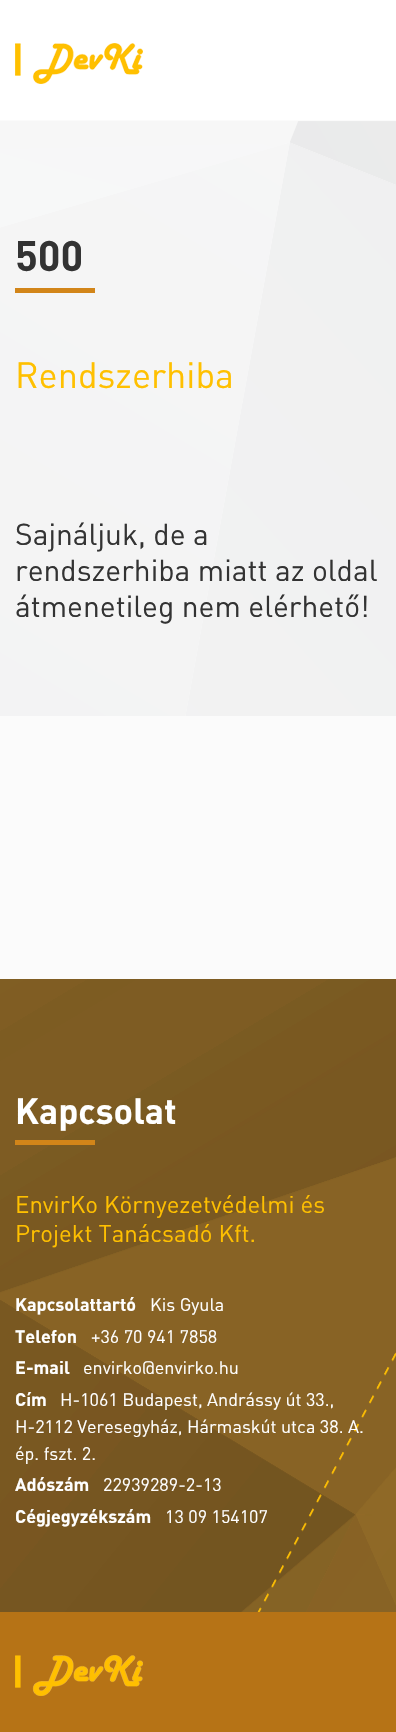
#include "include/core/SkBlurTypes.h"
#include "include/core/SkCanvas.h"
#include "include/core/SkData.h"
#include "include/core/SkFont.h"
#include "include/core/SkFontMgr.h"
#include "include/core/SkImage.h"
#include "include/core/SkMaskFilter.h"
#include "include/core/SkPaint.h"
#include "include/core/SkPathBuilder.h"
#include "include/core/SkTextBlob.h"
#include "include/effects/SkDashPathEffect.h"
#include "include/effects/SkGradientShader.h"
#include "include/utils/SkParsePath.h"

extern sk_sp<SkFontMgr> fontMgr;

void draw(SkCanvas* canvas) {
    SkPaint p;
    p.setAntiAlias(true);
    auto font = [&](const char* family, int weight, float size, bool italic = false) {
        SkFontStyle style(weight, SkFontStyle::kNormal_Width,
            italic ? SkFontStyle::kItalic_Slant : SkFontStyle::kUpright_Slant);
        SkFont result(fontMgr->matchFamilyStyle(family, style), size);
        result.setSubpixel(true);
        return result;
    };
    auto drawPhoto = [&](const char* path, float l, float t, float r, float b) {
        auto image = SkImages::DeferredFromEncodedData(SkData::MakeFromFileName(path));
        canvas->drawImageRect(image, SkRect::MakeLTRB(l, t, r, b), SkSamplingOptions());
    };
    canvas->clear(0xFFFBFBFB);
    p.setColor(0xFFFFFFFF);
    canvas->drawRect(SkRect::MakeLTRB(0, 0, 396, 120), p);
    drawPhoto("media/1.png", 15, 43, 143, 84);
    drawPhoto("media/2.png", 0, 121, 396, 716);
    auto font1 = font("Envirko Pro", 700, 42);
    p.setColor(0xFF333333);
    canvas->drawString("500", 15, 271, font1, p);
    p.setColor(0xFFD28519);
    canvas->drawRect(SkRect::MakeLTRB(15, 288, 95, 293), p);
    auto font2 = font("Envirko Pro", 400, 36);
    p.setColor(0xFFFFC000);
    canvas->drawString("Rendszerhiba", 15, 388, font2, p);
    auto font3 = font("Envirko Pro", 400, 30);
    p.setColor(0xFF333333);
    {
        const struct { const char* s; float x, y; } items[] = {
            {"Sajnáljuk, de a", 15, 545},
            {"rendszerhiba miatt az oldal", 15, 581},
            {"átmenetileg nem elérhető!", 15, 617},
        };
        for (auto [s, x, y] : items) {
            canvas->drawString(s, x, y, font3, p);
        }
    }
    drawPhoto("media/3.png", 0, 979, 396, 1612);
    drawPhoto("media/4.png", 257, 1352, 396, 1612);
    auto font4 = font("Envirko Pro", 700, 36);
    p.setColor(0xFFFFFFFF);
    canvas->drawString("Kapcsolat", 15, 1124, font4, p);
    p.setColor(0xFFD28519);
    canvas->drawRect(SkRect::MakeLTRB(15, 1140, 95, 1145), p);
    auto font5 = font("Envirko Pro", 400, 24);
    p.setColor(0xFFFFC000);
    canvas->drawString("EnvirKo Környezetvédelmi és", 15, 1213, font5, p);
    canvas->drawString("Projekt Tanácsadó Kft.", 15, 1242, font5, p);
    auto font6 = font("Envirko Pro", 700, 18);
    p.setColor(0xFFFFFFFF);
    canvas->drawString("Kapcsolattartó", 15, 1311, font6, p);
    auto font7 = font("Envirko Pro", 400, 18);
    canvas->drawString("Kis Gyula", 150, 1311, font7, p);
    canvas->drawString("Telefon", 15, 1343, font6, p);
    canvas->drawString("+36 70 941 7858", 91, 1343, font7, p);
    canvas->drawString("E-mail", 15, 1374, font6, p);
    canvas->drawString("envirko@envirko.hu", 83, 1374, font7, p);
    canvas->drawString("Cím", 15, 1406, font6, p);
    {
        const struct { const char* s; float x, y; } items[] = {
            {"H-1061 Budapest, Andrássy út 33.,", 60, 1406},
            {"H-2112 Veresegyház, Hármaskút utca 38. A.", 15, 1433},
            {"ép. fszt. 2.", 15, 1460},
        };
        for (auto [s, x, y] : items) {
            canvas->drawString(s, x, y, font7, p);
        }
    }
    canvas->drawString("Adószám", 15, 1491, font6, p);
    canvas->drawString("22939289-2-13", 103, 1491, font7, p);
    canvas->drawString("Cégjegyzékszám", 15, 1523, font6, p);
    canvas->drawString("13 09 154107", 165, 1523, font7, p);
    p.setColor(0xFFB67316);
    canvas->drawRect(SkRect::MakeLTRB(0, 1612, 396, 1732), p);
    drawPhoto("media/5.png", 15, 1655, 143, 1696);
}
